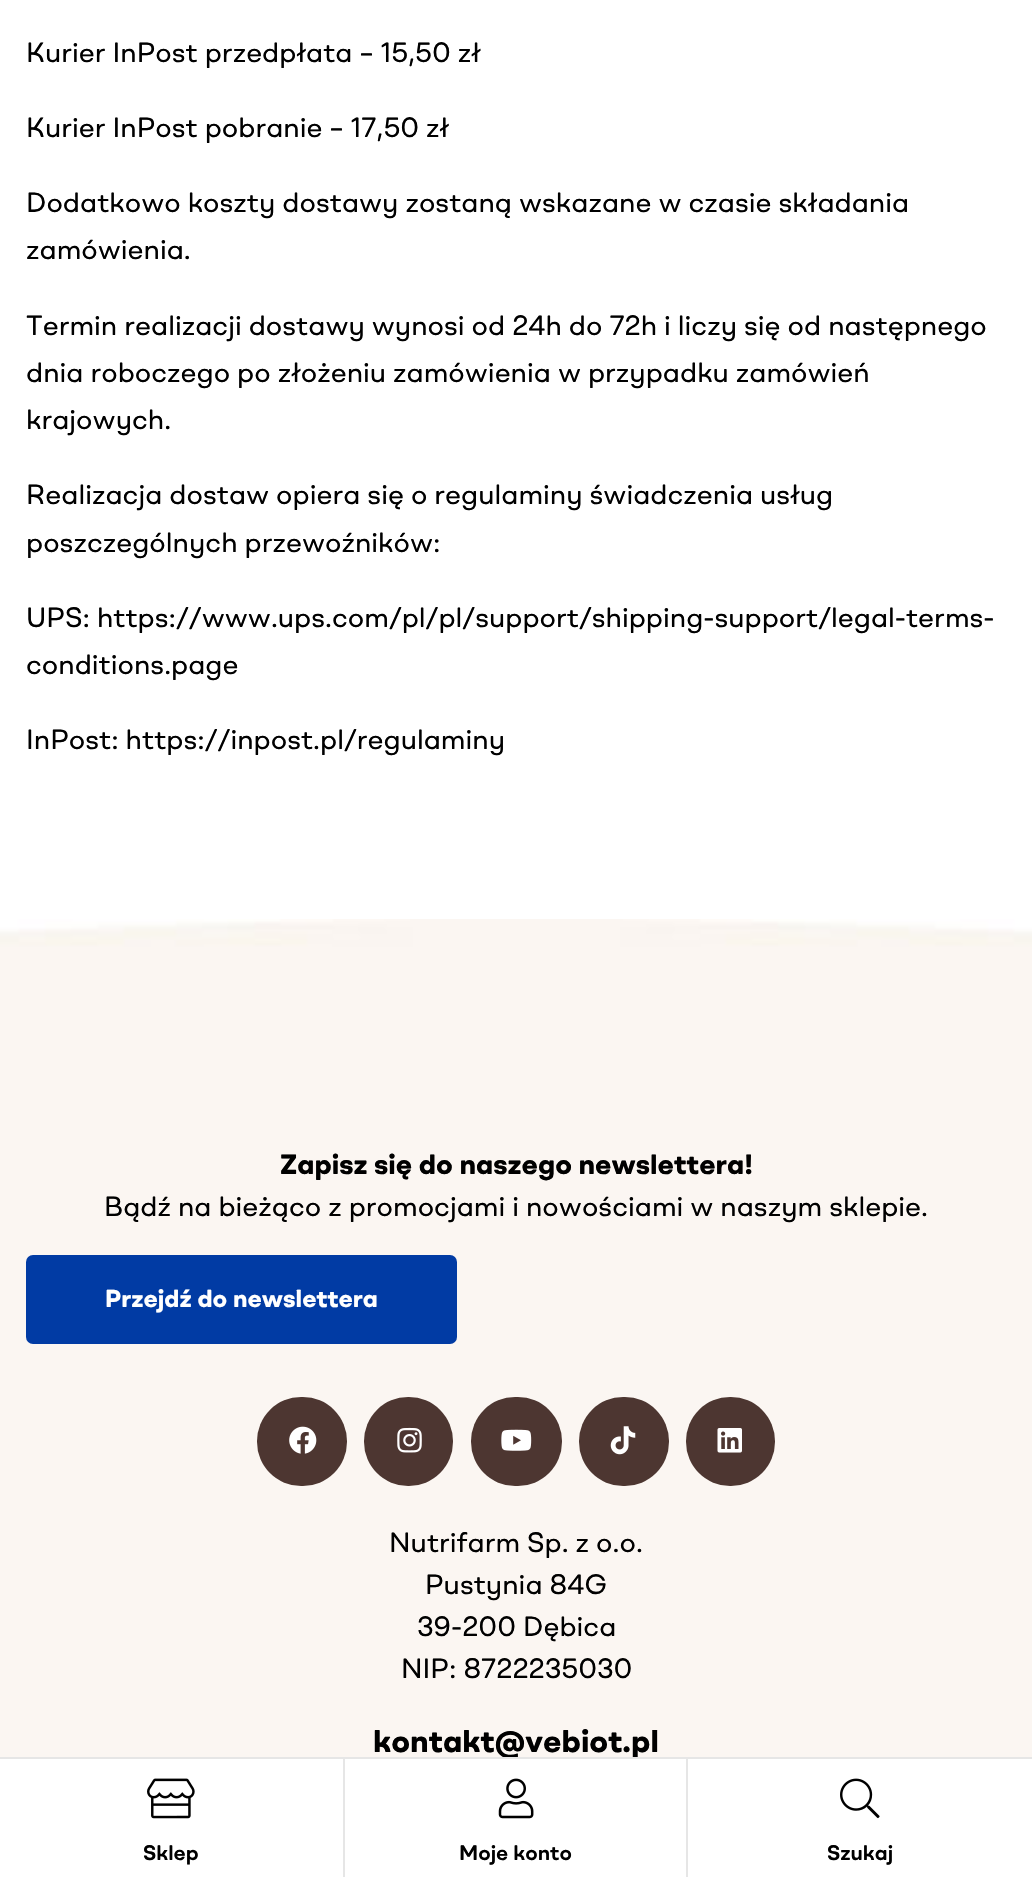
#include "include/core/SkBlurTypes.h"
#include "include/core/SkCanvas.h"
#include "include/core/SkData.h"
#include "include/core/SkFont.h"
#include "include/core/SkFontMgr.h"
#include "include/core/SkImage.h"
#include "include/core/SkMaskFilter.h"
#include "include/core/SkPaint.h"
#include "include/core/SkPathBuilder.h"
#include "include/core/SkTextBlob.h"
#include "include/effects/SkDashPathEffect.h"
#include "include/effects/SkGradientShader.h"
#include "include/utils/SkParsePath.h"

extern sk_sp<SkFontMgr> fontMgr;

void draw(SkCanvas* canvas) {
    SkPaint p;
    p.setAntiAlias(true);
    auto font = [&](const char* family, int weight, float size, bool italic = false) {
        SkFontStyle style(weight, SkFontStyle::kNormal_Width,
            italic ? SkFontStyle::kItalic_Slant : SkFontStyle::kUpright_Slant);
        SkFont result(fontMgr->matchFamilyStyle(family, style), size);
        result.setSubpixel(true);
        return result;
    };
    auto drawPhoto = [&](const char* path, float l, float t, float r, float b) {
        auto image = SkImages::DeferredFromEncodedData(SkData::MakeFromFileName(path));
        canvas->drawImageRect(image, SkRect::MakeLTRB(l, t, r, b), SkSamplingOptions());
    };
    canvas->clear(0xFFFFFFFF);
    auto font1 = font("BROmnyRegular", 400, 28);
    p.setColor(0xFF000000);
    {
        const struct { const char* s; float x, y; } items[] = {
            {"Kurier InPost przedpłata – 15,50 zł", 26, 62},
            {"Kurier InPost pobranie – 17,50 zł", 26, 137},
            {"Dodatkowo koszty dostawy zostaną wskazane w czasie składania", 26, 212},
            {"zamówienia.", 26, 259},
            {"Termin realizacji dostawy wynosi od 24h do 72h i liczy się od następnego", 26, 335},
            {"dnia roboczego po złożeniu zamówienia w przypadku zamówień", 26, 382},
            {"krajowych.", 26, 429},
            {"Realizacja dostaw opiera się o regulaminy świadczenia usług", 26, 504},
            {"poszczególnych przewoźników:", 26, 552},
            {"UPS: https://www.ups.com/pl/pl/support/shipping-support/legal-terms-", 26, 627},
            {"conditions.page", 26, 674},
            {"InPost: https://inpost.pl/regulaminy", 26, 749},
        };
        for (auto [s, x, y] : items) {
            canvas->drawString(s, x, y, font1, p);
        }
    }
    drawPhoto("media/1.png", 0, 919, 1032, 1757);
    auto font2 = font("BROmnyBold", 700, 28);
    canvas->drawString("Zapisz się do naszego newslettera!", 280, 1174, font2, p);
    canvas->drawString("Bądź na bieżąco z promocjami i nowościami w naszym sklepie.", 104, 1216, font1, p);
    p.setColor(0xFF013BA4);
    canvas->drawRoundRect(SkRect::MakeLTRB(26, 1255, 457, 1344), 7, 7, p);
    auto font3 = font("BROmnyBold", 700, 24.5f);
    p.setColor(0xFFFFFFFF);
    canvas->drawString("Przejdź do newslettera", 105, 1307, font3, p);
    p.setColor(0xFF4D3631);
    canvas->drawRoundRect(SkRect::MakeLTRB(257, 1397, 347, 1486), 44, 44, p);
    drawPhoto("media/2.png", 289, 1426, 317, 1454);
    canvas->drawRoundRect(SkRect::MakeLTRB(364, 1397, 453, 1486), 44, 44, p);
    drawPhoto("media/3.png", 397, 1427, 422, 1453);
    canvas->drawRoundRect(SkRect::MakeLTRB(471, 1397, 562, 1486), 44, 44, p);
    drawPhoto("media/4.png", 501, 1429, 532, 1451);
    canvas->drawRoundRect(SkRect::MakeLTRB(579, 1397, 669, 1486), 44, 44, p);
    drawPhoto("media/5.png", 610, 1426, 636, 1455);
    canvas->drawRoundRect(SkRect::MakeLTRB(686, 1397, 775, 1486), 44, 44, p);
    drawPhoto("media/6.png", 717, 1428, 742, 1453);
    p.setColor(0xFF000000);
    {
        const struct { const char* s; float x, y; } items[] = {
            {"Nutrifarm Sp. z o.o.", 389, 1552},
            {"Pustynia 84G", 425, 1594},
            {"39-200 Dębica", 417, 1636},
            {"NIP: 8722235030", 401, 1678},
        };
        for (auto [s, x, y] : items) {
            canvas->drawString(s, x, y, font1, p);
        }
    }
    auto font4 = font("BROmnyBold", 700, 31.5f);
    canvas->drawString("kontakt@vebiot.pl", 373, 1752, font4, p);
    p.setColor(0xFFE6E6E6);
    canvas->drawRect(SkRect::MakeLTRB(0, 1757, 1032, 1759), p);
    canvas->drawRect(SkRect::MakeLTRB(343, 1759, 345, 1877), p);
    drawPhoto("media/7.png", 147, 1778, 195, 1819);
    auto font5 = font("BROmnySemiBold", 600, 21);
    p.setColor(0xFF000000);
    canvas->drawString("Sklep", 143, 1860, font5, p);
    p.setColor(0xFFE6E6E6);
    canvas->drawRect(SkRect::MakeLTRB(686, 1759, 688, 1877), p);
    drawPhoto("media/8.png", 498, 1778, 534, 1819);
    p.setColor(0xFF000000);
    canvas->drawString("Moje konto", 459, 1860, font5, p);
    drawPhoto("media/9.png", 840, 1778, 880, 1819);
    canvas->drawString("Szukaj", 827, 1860, font5, p);
}
